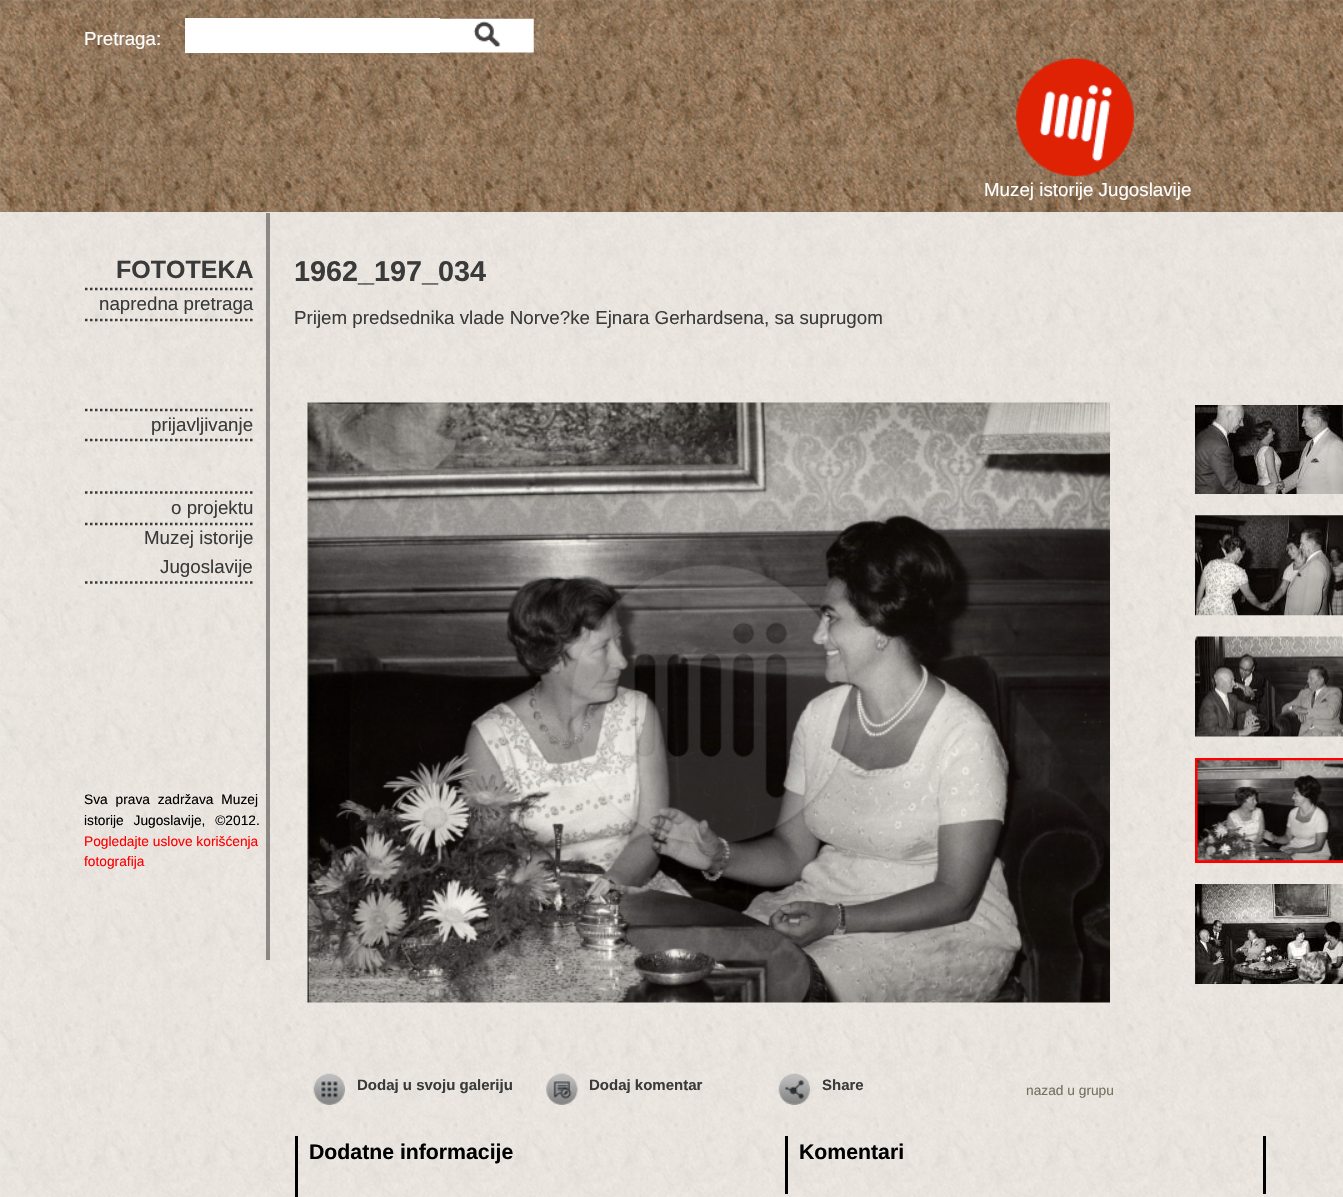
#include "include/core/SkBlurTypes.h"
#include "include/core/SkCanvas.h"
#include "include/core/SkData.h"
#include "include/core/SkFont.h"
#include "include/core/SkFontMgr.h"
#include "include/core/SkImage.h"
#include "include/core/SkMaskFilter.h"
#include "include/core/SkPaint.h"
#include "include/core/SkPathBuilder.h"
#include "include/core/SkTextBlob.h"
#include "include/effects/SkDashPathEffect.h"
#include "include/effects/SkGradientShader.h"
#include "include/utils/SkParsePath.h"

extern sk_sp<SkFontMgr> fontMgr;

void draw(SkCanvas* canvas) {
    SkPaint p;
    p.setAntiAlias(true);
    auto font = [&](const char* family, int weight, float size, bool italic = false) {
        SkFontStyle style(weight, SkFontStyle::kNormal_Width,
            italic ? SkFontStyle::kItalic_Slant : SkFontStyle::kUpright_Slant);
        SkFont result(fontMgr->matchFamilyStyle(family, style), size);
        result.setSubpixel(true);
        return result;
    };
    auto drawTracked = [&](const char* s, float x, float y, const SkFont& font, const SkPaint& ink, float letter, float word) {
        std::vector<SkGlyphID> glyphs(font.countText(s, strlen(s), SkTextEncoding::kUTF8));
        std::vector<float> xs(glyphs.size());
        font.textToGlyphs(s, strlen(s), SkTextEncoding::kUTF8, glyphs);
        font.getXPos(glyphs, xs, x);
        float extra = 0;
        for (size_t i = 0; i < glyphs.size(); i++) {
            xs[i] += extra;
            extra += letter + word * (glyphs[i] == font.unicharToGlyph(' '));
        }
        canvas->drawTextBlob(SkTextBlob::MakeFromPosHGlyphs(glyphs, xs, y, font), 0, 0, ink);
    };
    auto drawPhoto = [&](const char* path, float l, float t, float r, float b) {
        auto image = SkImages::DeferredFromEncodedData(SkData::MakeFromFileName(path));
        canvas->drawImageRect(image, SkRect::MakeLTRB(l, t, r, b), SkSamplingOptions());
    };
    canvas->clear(0xFFFFFFFF);
    drawPhoto("media/1.png", 0, 0, 1343, 1197);
    auto font1 = font("Liberation Sans", 400, 18.75f);
    p.setColor(0xFFFFFFFF);
    canvas->drawString("Pretraga:", 84, 45, font1, p);
    canvas->drawRect(SkRect::MakeLTRB(185, 18, 440, 53), p);
    drawPhoto("media/2.png", 440, 18, 534, 53);
    drawPhoto("media/3.png", 1016, 57, 1134, 177);
    canvas->drawString("Muzej istorije Jugoslavije", 984, 196, font1, p);
    p.setColor(0xCCFFFFFF);
    canvas->drawRect(SkRect::MakeLTRB(0, 212, 1343, 1197), p);
    p.setColor(0x66000000);
    canvas->drawRect(SkRect::MakeLTRB(266, 213, 270, 960), p);
    p.setStyle(SkPaint::kStroke_Style);
    p.setStrokeWidth(2.5f);
    p.setColor(0xFF393A39);
    p.setPathEffect(SkDashPathEffect::Make({{2.5f, 2.5f}}, 0));
    canvas->drawPath(SkPathBuilder().moveTo(85, 289).lineTo(254, 289).detach(), p);
    p.setPathEffect(nullptr);
    auto font2 = font("Liberation Sans", 700, 25);
    p.setStyle(SkPaint::kFill_Style);
    canvas->drawString("FOTOTEKA", 116, 278, font2, p);
    p.setStyle(SkPaint::kStroke_Style);
    p.setPathEffect(SkDashPathEffect::Make({{2.5f, 2.5f}}, 0));
    canvas->drawPath(SkPathBuilder().moveTo(85, 320).lineTo(254, 320).detach(), p);
    p.setPathEffect(nullptr);
    p.setStyle(SkPaint::kFill_Style);
    canvas->drawString("napredna pretraga", 99, 310, font1, p);
    p.setStyle(SkPaint::kStroke_Style);
    p.setPathEffect(SkDashPathEffect::Make({{2.5f, 2.5f}}, 0));
    canvas->drawPath(SkPathBuilder().moveTo(85, 410).lineTo(254, 410).detach(), p);
    p.setPathEffect(nullptr);
    p.setPathEffect(SkDashPathEffect::Make({{2.5f, 2.5f}}, 0));
    canvas->drawPath(SkPathBuilder().moveTo(85, 440).lineTo(254, 440).detach(), p);
    p.setPathEffect(nullptr);
    p.setStyle(SkPaint::kFill_Style);
    canvas->drawString("prijavljivanje", 151, 431, font1, p);
    p.setStyle(SkPaint::kStroke_Style);
    p.setPathEffect(SkDashPathEffect::Make({{2.5f, 2.5f}}, 0));
    canvas->drawPath(SkPathBuilder().moveTo(85, 492.5f).lineTo(254, 492.5f).detach(), p);
    p.setPathEffect(nullptr);
    p.setPathEffect(SkDashPathEffect::Make({{2.5f, 2.5f}}, 0));
    canvas->drawPath(SkPathBuilder().moveTo(85, 524).lineTo(254, 524).detach(), p);
    p.setPathEffect(nullptr);
    p.setStyle(SkPaint::kFill_Style);
    canvas->drawString("o projektu", 171, 514, font1, p);
    p.setStyle(SkPaint::kStroke_Style);
    p.setPathEffect(SkDashPathEffect::Make({{2.5f, 2.5f}}, 0));
    canvas->drawPath(SkPathBuilder().moveTo(85, 582.5f).lineTo(254, 582.5f).detach(), p);
    p.setPathEffect(nullptr);
    p.setStyle(SkPaint::kFill_Style);
    canvas->drawString("Muzej istorije", 144, 544, font1, p);
    canvas->drawString("Jugoslavije", 160, 573, font1, p);
    auto font3 = font("Liberation Sans", 400, 13.75f);
    p.setColor(0xFF000000);
    drawTracked("Sva prava zadržava Muzej", 84, 804, font3, p, 0, 4);
    drawTracked("istorije Jugoslavije, ©2012.", 84, 825, font3, p, 0, 6);
    p.setColor(0xFFFF0000);
    canvas->drawString("Pogledajte uslove korišćenja", 84, 846, font3, p);
    canvas->drawString("fotografija", 84, 866, font3, p);
    auto font4 = font("Liberation Sans", 700, 28.75f);
    p.setColor(0xFF393A39);
    canvas->drawString("1962_197_034", 294, 281, font4, p);
    canvas->drawString("Prijem predsednika vlade Norve?ke Ejnara Gerhardsena, sa suprugom", 294, 324, font1, p);
    drawPhoto("media/4.png", 307, 402, 1110, 1003);
    drawPhoto("media/5.png", 1195, 405, 1343, 494);
    drawPhoto("media/6.png", 1195, 515, 1343, 616);
    drawPhoto("media/7.png", 1195, 636, 1343, 737);
    p.setStyle(SkPaint::kStroke_Style);
    p.setStrokeWidth(3);
    p.setColor(0xFFFF0000);
    canvas->drawRect(SkRect::MakeLTRB(1196.5f, 759.5f, 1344.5f, 861.5f), p);
    drawPhoto("media/8.png", 1197, 760, 1343, 861);
    drawPhoto("media/9.png", 1195, 884, 1343, 984);
    drawPhoto("media/10.png", 313, 1073, 345, 1105);
    auto font5 = font("Liberation Sans", 700, 15);
    p.setStyle(SkPaint::kFill_Style);
    p.setColor(0xFF393A39);
    canvas->drawString("Dodaj u svoju galeriju", 357, 1090, font5, p);
    drawPhoto("media/11.png", 546, 1073, 578, 1105);
    canvas->drawString("Dodaj komentar", 589, 1090, font5, p);
    drawPhoto("media/12.png", 778, 1073, 810, 1105);
    canvas->drawString("Share", 822, 1090, font5, p);
    p.setColor(0xFF767061);
    canvas->drawString("nazad u grupu", 1026, 1095, font3, p);
    p.setColor(0xFF000000);
    canvas->drawRect(SkRect::MakeLTRB(295, 1136, 298, 1197), p);
    auto font6 = font("Liberation Sans", 700, 21.25f);
    canvas->drawString("Dodatne informacije", 309, 1159, font6, p);
    canvas->drawRect(SkRect::MakeLTRB(1263, 1136, 1266, 1194), p);
    canvas->drawRect(SkRect::MakeLTRB(785, 1136, 788, 1194), p);
    canvas->drawString("Komentari", 799, 1159, font6, p);
}
